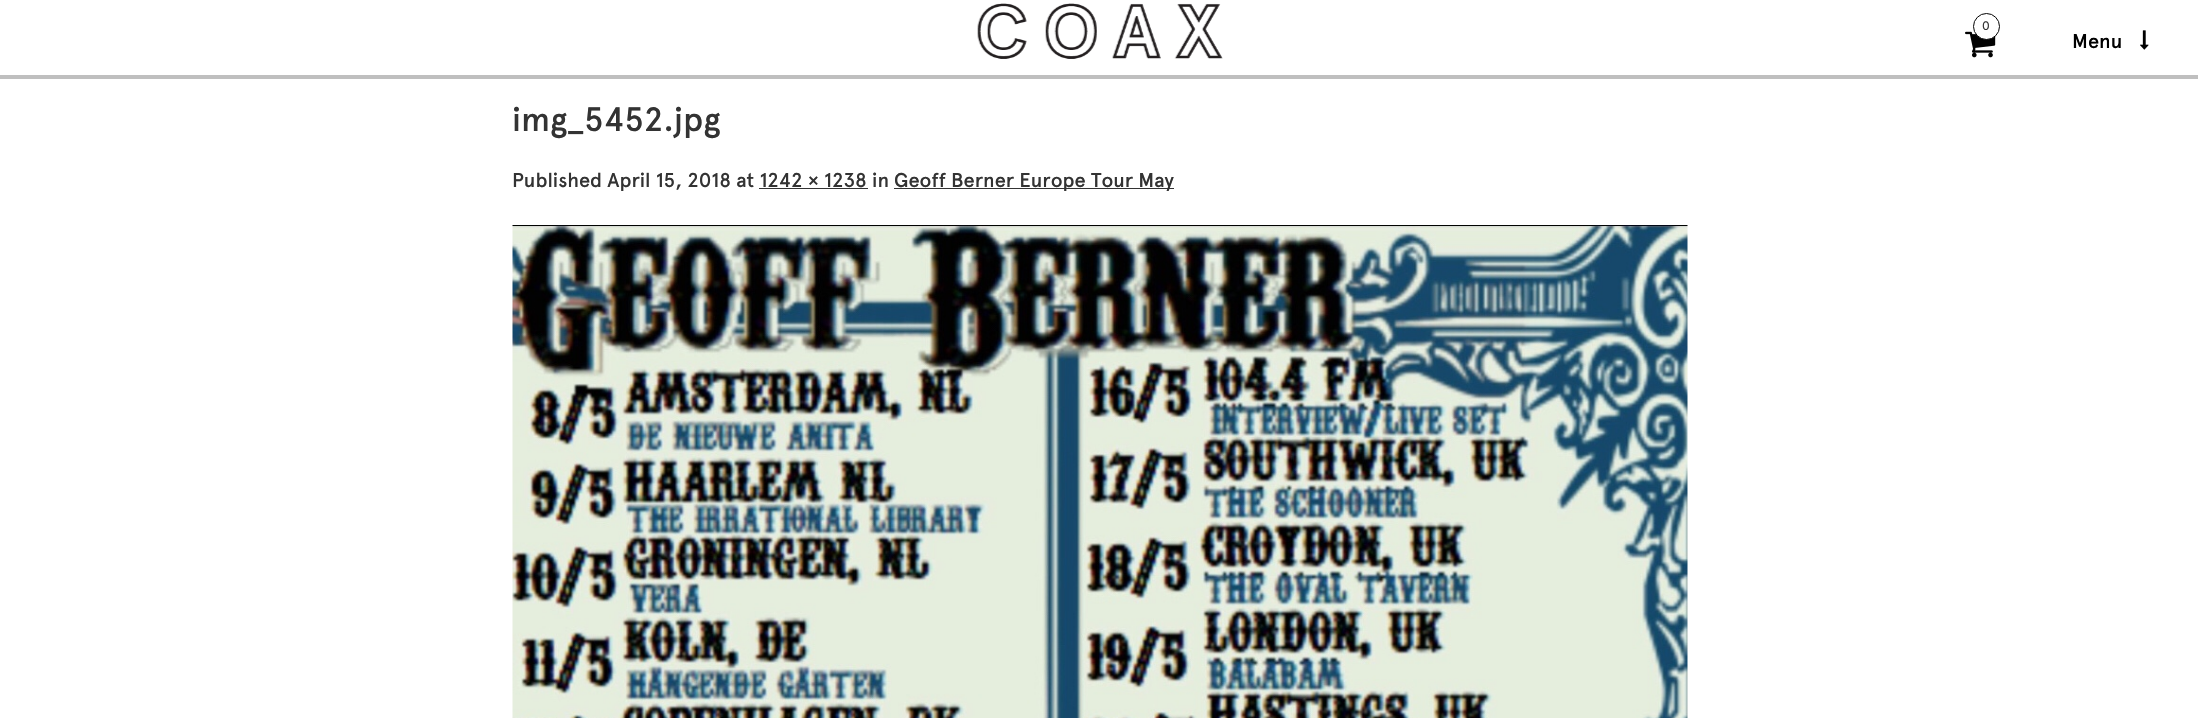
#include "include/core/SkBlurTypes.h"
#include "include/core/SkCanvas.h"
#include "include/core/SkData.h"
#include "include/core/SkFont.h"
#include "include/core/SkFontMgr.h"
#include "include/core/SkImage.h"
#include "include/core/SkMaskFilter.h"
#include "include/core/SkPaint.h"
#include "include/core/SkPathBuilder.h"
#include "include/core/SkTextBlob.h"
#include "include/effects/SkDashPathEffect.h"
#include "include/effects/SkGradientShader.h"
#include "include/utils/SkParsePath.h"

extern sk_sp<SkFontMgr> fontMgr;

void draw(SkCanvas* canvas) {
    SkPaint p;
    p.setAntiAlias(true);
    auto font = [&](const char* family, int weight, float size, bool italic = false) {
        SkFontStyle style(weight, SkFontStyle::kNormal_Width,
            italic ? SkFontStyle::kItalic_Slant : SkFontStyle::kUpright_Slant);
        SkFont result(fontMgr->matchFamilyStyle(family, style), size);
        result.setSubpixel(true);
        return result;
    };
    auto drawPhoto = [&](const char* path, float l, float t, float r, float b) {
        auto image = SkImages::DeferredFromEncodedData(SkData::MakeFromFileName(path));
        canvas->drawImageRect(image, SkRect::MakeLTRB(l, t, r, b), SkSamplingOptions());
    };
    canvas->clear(0xFFFFFFFF);
    p.setColor(0xFFBFBFBF);
    canvas->drawRect(SkRect::MakeLTRB(0, 75, 2198, 79), p);
    drawPhoto("media/1.png", 977, 3, 1223, 59);
    drawPhoto("media/2.png", 1965, 31, 1996, 58);
    p.setColor(0xFFFFFFFF);
    canvas->drawCircle(1986.5f, 26.5f, 13, p);
    p.setStyle(SkPaint::kStroke_Style);
    p.setStrokeWidth(1);
    p.setColor(0xFF020202);
    canvas->drawCircle(1986.5f, 26.5f, 13, p);
    auto font1 = font("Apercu", 700, 12);
    p.setStyle(SkPaint::kFill_Style);
    p.setColor(0xFF333333);
    canvas->drawString("0", 1982, 30, font1, p);
    auto font2 = font("Apercu", 500, 20);
    p.setColor(0xFF000000);
    canvas->drawString("Menu", 2072, 48, font2, p);
    drawPhoto("media/3.png", 2140, 30, 2149, 50);
    auto font3 = font("Apercu", 500, 33.75f);
    p.setColor(0xFF333333);
    canvas->drawString("img_5452.jpg", 512, 131, font3, p);
    canvas->drawString("Published April 15, 2018 at 1242 × 1238 in", 512, 187, font2, p);
    canvas->drawRect(SkRect::MakeLTRB(894, 188, 1174, 189), p);
    canvas->drawString("Geoff Berner Europe Tour May", 894, 187, font2, p);
    canvas->drawRect(SkRect::MakeLTRB(759, 188, 868, 189), p);
    drawPhoto("media/4.png", 512, 225, 1688, 718);
}
